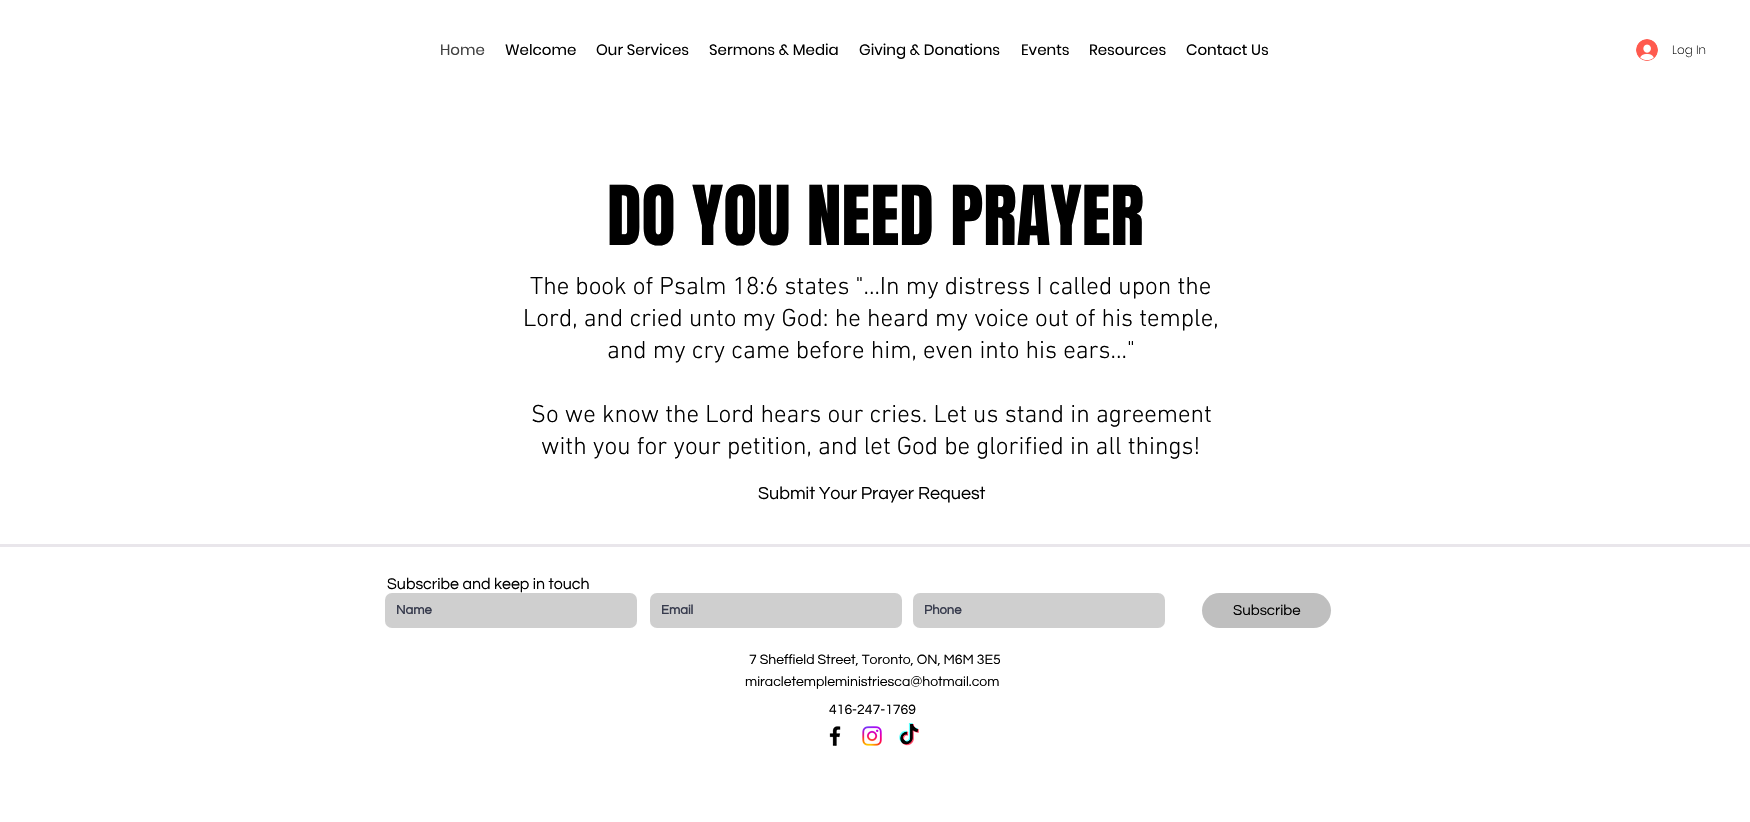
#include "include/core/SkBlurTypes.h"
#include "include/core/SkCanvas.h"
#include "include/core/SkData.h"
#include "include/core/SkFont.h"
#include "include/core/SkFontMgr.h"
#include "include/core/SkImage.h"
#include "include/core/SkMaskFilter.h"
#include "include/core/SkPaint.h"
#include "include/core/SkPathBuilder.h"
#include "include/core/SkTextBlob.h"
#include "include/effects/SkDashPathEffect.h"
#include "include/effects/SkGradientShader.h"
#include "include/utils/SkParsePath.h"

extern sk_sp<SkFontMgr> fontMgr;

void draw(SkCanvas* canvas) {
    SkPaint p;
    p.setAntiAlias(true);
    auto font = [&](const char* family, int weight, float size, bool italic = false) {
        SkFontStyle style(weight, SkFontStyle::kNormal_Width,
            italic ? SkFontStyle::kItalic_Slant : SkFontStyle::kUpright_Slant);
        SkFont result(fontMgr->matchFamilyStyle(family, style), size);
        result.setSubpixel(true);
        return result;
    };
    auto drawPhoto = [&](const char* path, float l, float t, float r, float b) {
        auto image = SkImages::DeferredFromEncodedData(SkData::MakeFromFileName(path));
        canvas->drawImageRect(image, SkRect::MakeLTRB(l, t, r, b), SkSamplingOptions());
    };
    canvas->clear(0xFFE9E6EB);
    p.setColor(0xFFFFFFFF);
    canvas->drawRect(SkRect::MakeLTRB(0, 0, 1750, 544), p);
    auto font1 = font("Poppins", 400, 15);
    p.setColor(0xFF404040);
    canvas->drawString("Home", 440, 55, font1, p);
    p.setColor(0xFF000000);
    {
        const struct { const char* s; float x, y; } items[] = {
            {"Welcome", 505, 55},
            {"Our Services", 596, 55},
            {"Sermons & Media", 709, 55},
            {"Giving & Donations", 859, 55},
            {"Events", 1021, 55},
            {"Resources", 1089, 55},
            {"Contact Us", 1186, 55},
        };
        for (auto [s, x, y] : items) {
            canvas->drawString(s, x, y, font1, p);
        }
    }
    drawPhoto("media/1.png", 1636, 39, 1658, 61);
    auto font2 = font("Poppins", 200, 12);
    canvas->drawString("Log In", 1672, 54, font2, p);
    auto font3 = font("Anton", 400, 70);
    canvas->drawString("DO YOU NEED PRAYER", 607, 245, font3, p);
    auto font4 = font("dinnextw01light", 300, 25);
    {
        const struct { const char* s; float x, y; } items[] = {
            {"The book of Psalm 18:6 states \"...In my distress I called upon the", 530, 294},
            {"Lord, and cried unto my God: he heard my voice out of his temple,", 523, 326},
            {"and my cry came before him, even into his ears...\"", 607, 358},
            {"So we know the Lord hears our cries. Let us stand in agreement", 531, 422},
            {"with you for your petition, and let God be glorified in all things!", 541, 454},
        };
        for (auto [s, x, y] : items) {
            canvas->drawString(s, x, y, font4, p);
        }
    }
    auto font5 = font("Questrial", 400, 18);
    canvas->drawString("Submit Your Prayer Request", 758, 499, font5, p);
    p.setColor(0xFFFFFFFF);
    canvas->drawRect(SkRect::MakeLTRB(0, 547, 1750, 822), p);
    auto font6 = font("Questrial", 400, 16);
    p.setColor(0xFF000000);
    canvas->drawString("Subscribe and keep in touch", 387, 589, font6, p);
    p.setColor(0xFFCFCFCF);
    canvas->drawRoundRect(SkRect::MakeLTRB(385, 593, 637, 628), 7, 7, p);
    auto font7 = font("Questrial", 700, 13);
    p.setColor(0xFF373B4D);
    canvas->drawString("Name", 396, 614, font7, p);
    p.setColor(0xFFCFCFCF);
    canvas->drawRoundRect(SkRect::MakeLTRB(650, 593, 902, 628), 7, 7, p);
    p.setColor(0xFF373B4D);
    canvas->drawString("Email", 661, 614, font7, p);
    p.setColor(0xFFCFCFCF);
    canvas->drawRoundRect(SkRect::MakeLTRB(913, 593, 1165, 628), 7, 7, p);
    p.setColor(0xFF373B4D);
    canvas->drawString("Phone", 924, 614, font7, p);
    p.setColor(0xFFBFBFBF);
    canvas->drawRoundRect(SkRect::MakeLTRB(1202, 593, 1331, 628), 17.5f, 17.5f, p);
    auto font8 = font("Questrial", 400, 15);
    p.setColor(0xFF000000);
    canvas->drawString("Subscribe", 1233, 615, font8, p);
    auto font9 = font("Questrial", 400, 14);
    {
        const struct { const char* s; float x, y; } items[] = {
            {"7 Sheffield Street, Toronto, ON, M6M 3E5", 749, 664},
            {"miracletempleministriesca@hotmail.com", 745, 686},
            {"416-247-1769", 829, 714},
        };
        for (auto [s, x, y] : items) {
            canvas->drawString(s, x, y, font9, p);
        }
    }
    drawPhoto("media/2.png", 829, 726, 841, 746);
    drawPhoto("media/3.png", 862, 726, 882, 746);
    drawPhoto("media/4.png", 899, 723, 919, 746);
}
